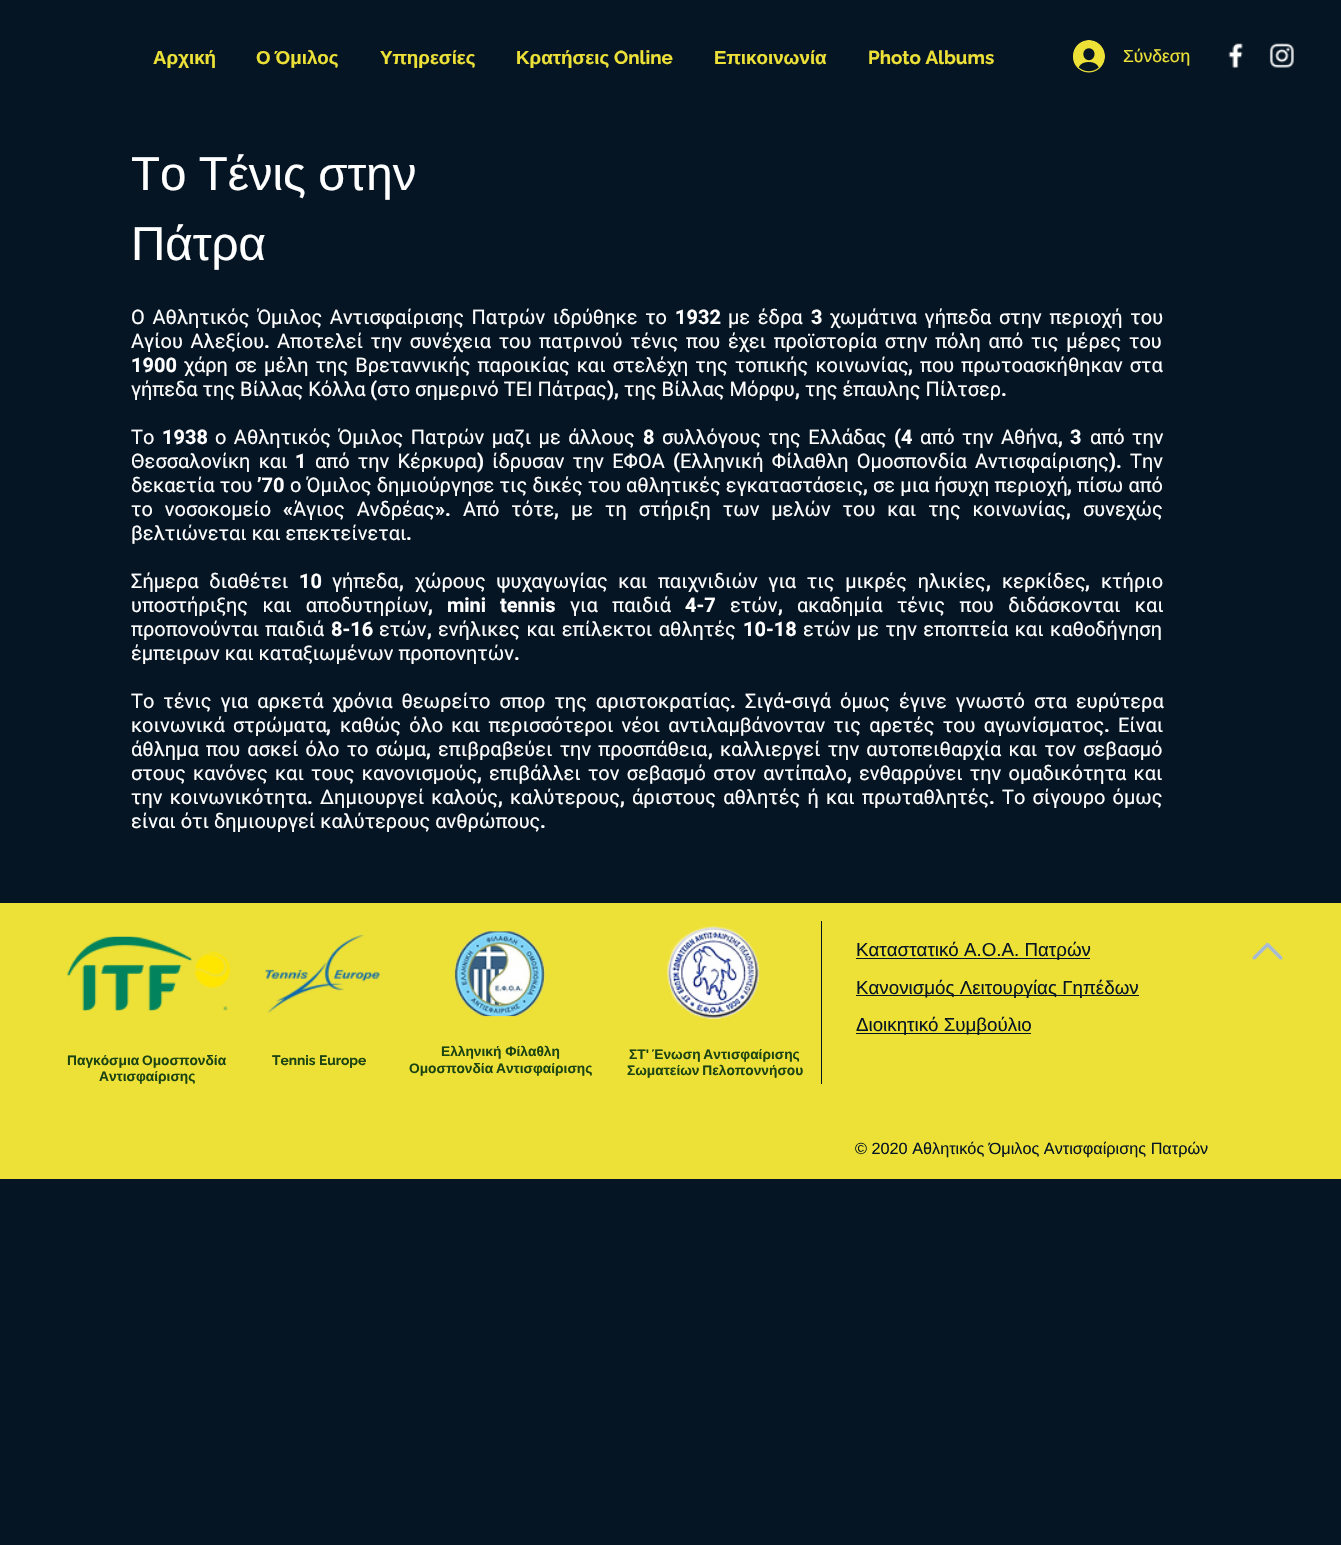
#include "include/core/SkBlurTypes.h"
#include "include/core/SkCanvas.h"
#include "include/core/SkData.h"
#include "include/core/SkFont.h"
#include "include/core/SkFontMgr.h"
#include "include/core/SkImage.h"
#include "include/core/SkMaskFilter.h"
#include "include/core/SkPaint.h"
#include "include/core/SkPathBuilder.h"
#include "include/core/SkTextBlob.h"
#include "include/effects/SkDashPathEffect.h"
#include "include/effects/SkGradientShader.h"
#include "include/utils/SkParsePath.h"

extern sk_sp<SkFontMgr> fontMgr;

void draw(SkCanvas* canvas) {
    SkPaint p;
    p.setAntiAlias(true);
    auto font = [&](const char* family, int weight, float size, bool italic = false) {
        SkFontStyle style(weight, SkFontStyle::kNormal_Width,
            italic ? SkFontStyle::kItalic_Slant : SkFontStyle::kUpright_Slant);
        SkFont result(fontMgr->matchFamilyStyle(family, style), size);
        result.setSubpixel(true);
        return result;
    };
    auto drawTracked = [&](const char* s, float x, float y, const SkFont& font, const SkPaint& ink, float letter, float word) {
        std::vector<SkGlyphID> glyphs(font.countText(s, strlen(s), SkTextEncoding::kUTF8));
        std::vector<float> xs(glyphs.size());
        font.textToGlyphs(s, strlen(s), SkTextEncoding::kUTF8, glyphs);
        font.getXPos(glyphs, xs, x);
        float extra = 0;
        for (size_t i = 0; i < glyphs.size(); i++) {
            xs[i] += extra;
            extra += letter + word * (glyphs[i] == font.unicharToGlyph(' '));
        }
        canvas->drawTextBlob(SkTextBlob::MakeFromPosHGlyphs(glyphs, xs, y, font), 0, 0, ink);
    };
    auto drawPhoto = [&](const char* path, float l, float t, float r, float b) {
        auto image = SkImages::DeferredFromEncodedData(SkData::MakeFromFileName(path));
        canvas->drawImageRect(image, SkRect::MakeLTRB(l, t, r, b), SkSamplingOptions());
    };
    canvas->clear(0xFF061524);
    auto font1 = font("Liberation Sans", 700, 18.75f);
    p.setColor(0xFFEDE138);
    canvas->drawString("Αρχική", 153, 64, font1, p);
    drawTracked("Ο Όμιλος", 256, 64, font1, p, 0, -1);
    canvas->drawString("Υπηρεσίες", 380, 64, font1, p);
    canvas->drawString("Κρατήσεις", 516, 64, font1, p);
    auto font2 = font("Raleway", 700, 18.75f);
    canvas->drawString("Online", 614, 64, font2, p);
    canvas->drawString("Επικοινωνία", 714, 64, font1, p);
    canvas->drawString("Photo Albums", 868, 64, font2, p);
    drawPhoto("media/1.png", 1073, 40, 1105, 73);
    auto font3 = font("Liberation Sans", 400, 17.5f);
    canvas->drawString("Σύνδεση", 1123, 62, font3, p);
    drawPhoto("media/2.png", 1228, 43, 1243, 68);
    drawPhoto("media/3.png", 1269, 43, 1294, 68);
    auto font4 = font("Liberation Sans", 400, 47.5f);
    p.setColor(0xFFFFFFFF);
    drawTracked("Το Τένις στην", 131, 190, font4, p, 0, -1);
    canvas->drawString("Πάτρα", 131, 260, font4, p);
    auto font5 = font("Roboto", 400, 20);
    drawTracked("Ο Αθλητικός Όμιλος Αντισφαίρισης Πατρών ιδρύθηκε το", 131, 324, font5, p, 0, 2.75f);
    auto font6 = font("Roboto", 700, 20);
    canvas->drawString("1932", 675, 324, font6, p);
    drawTracked("με έδρα", 728, 324, font5, p, 0, 2.75f);
    canvas->drawString("3", 811, 324, font6, p);
    drawTracked("χωμάτινα γήπεδα στην περιοχή του", 830, 324, font5, p, 0, 2.75f);
    drawTracked("Αγίου Αλεξίου", 131, 348, font5, p, 0, 2.75f);
    canvas->drawString(".", 264, 348, font6, p);
    drawTracked("Αποτελεί την συνέχεια του πατρινού τένις που έχει προϊστορία στην πόλη από τις μέρες του", 277, 348, font5, p, 0, 2.75f);
    canvas->drawString("1900", 131, 372, font6, p);
    drawTracked("χάρη σε μέλη της Βρεταννικής παροικίας και στελέχη της τοπικής κοινωνίας", 184, 372, font5, p, 0, 2.1f);
    canvas->drawString(",", 908, 372, font6, p);
    drawTracked("που πρωτοασκήθηκαν στα", 920, 372, font5, p, 0, 2.1f);
    canvas->drawString("γήπεδα της Βίλλας Κόλλα", 131, 396, font5, p);
    canvas->drawString("(", 370, 396, font6, p);
    canvas->drawString("στο σημερινό ΤΕΙ Πάτρας", 377, 396, font5, p);
    canvas->drawString("),", 607, 396, font6, p);
    canvas->drawString("της Βίλλας Μόρφυ", 624, 396, font5, p);
    canvas->drawString(",", 795, 396, font6, p);
    canvas->drawString("της έπαυλης Πίλτσερ", 805, 396, font5, p);
    canvas->drawString(".", 1001, 396, font6, p);
    canvas->drawString("Το", 131, 444, font5, p);
    canvas->drawString("1938", 162, 444, font6, p);
    drawTracked("ο Αθλητικός Όμιλος Πατρών μαζι με άλλους", 215, 444, font5, p, 0, 2.5f);
    canvas->drawString("8", 643, 444, font6, p);
    drawTracked("συλλόγους της Ελλάδας", 662, 444, font5, p, 0, 2.5f);
    canvas->drawString("(4", 894, 444, font6, p);
    drawTracked("από την Αθήνα", 920, 444, font5, p, 0, 2.5f);
    canvas->drawString(",", 1058, 444, font6, p);
    canvas->drawString("3", 1070, 444, font6, p);
    drawTracked("από την", 1090, 444, font5, p, 0, 2.5f);
    drawTracked("Θεσσαλονίκη και", 131, 468, font5, p, 0, 3.25f);
    canvas->drawString("1", 295, 468, font6, p);
    drawTracked("από την Κέρκυρα", 315, 468, font5, p, 0, 3.25f);
    canvas->drawString(")", 477, 468, font6, p);
    drawTracked("ίδρυσαν την ΕΦΟΑ", 492, 468, font5, p, 0, 3.25f);
    canvas->drawString("(", 673, 468, font6, p);
    drawTracked("Ελληνική Φίλαθλη Ομοσπονδία Αντισφαίρισης", 680, 468, font5, p, 0, 3.25f);
    canvas->drawString(").", 1109, 468, font6, p);
    canvas->drawString("Την", 1130, 468, font5, p);
    drawTracked("δεκαετία του", 131, 492, font5, p, 0, 0.25f);
    canvas->drawString("’70", 257, 492, font6, p);
    drawTracked("ο Όμιλος δημιούργησε τις δικές του αθλητικές εγκαταστάσεις", 290, 492, font5, p, 0, 0.25f);
    canvas->drawString(",", 863, 492, font6, p);
    drawTracked("σε μια ήσυχη περιοχή", 873, 492, font5, p, 0, 0.25f);
    canvas->drawString(",", 1067, 492, font6, p);
    drawTracked("πίσω από", 1077, 492, font5, p, 0, 0.25f);
    drawTracked("το νοσοκομείο", 131, 516, font5, p, 0, 7);
    canvas->drawString("«", 283, 516, font6, p);
    drawTracked("Άγιος Ανδρέας", 293, 516, font5, p, 0, 7);
    canvas->drawString("».", 435, 516, font6, p);
    drawTracked("Από τότε", 463, 516, font5, p, 0, 7);
    canvas->drawString(",", 554, 516, font6, p);
    drawTracked("με τη στήριξη των μελών του και της κοινωνίας", 571, 516, font5, p, 0, 7);
    canvas->drawString(",", 1066, 516, font6, p);
    canvas->drawString("συνεχώς", 1083, 516, font5, p);
    canvas->drawString("βελτιώνεται και επεκτείνεται", 131, 540, font5, p);
    canvas->drawString(".", 406, 540, font6, p);
    drawTracked("Σήμερα διαθέτει", 131, 588, font5, p, 0, 5.75f);
    canvas->drawString("10", 299, 588, font6, p);
    canvas->drawString("γήπεδα", 332, 588, font5, p);
    canvas->drawString(",", 399, 588, font6, p);
    drawTracked("χώρους ψυχαγωγίας και παιχνιδιών για τις μικρές ηλικίες", 415, 588, font5, p, 0, 5.75f);
    canvas->drawString(",", 986, 588, font6, p);
    canvas->drawString("κερκίδες", 1002, 588, font5, p);
    canvas->drawString(",", 1085, 588, font6, p);
    canvas->drawString("κτήριο", 1101, 588, font5, p);
    drawTracked("υποστήριξης και αποδυτηρίων", 131, 612, font5, p, 0, 9.5f);
    {
        const struct { const char* s; float x, y; } items[] = {
            {",", 428, 612},
            {"mini", 447, 612},
            {"tennis", 500, 612},
        };
        for (auto [s, x, y] : items) {
            canvas->drawString(s, x, y, font6, p);
        }
    }
    drawTracked("για παιδιά", 570, 612, font5, p, 0, 9.5f);
    canvas->drawString("4-7", 685, 612, font6, p);
    canvas->drawString("ετών", 730, 612, font5, p);
    canvas->drawString(",", 778, 612, font6, p);
    drawTracked("ακαδημία τένις που διδάσκονται και", 797, 612, font5, p, 0, 9.5f);
    drawTracked("προπονούνται παιδιά", 131, 636, font5, p, 0, 1.5f);
    canvas->drawString("8-16", 331, 636, font6, p);
    canvas->drawString("ετών", 379, 636, font5, p);
    canvas->drawString(",", 427, 636, font6, p);
    drawTracked("ενήλικες και επίλεκτοι αθλητές", 438, 636, font5, p, 0, 1.5f);
    canvas->drawString("10-18", 743, 636, font6, p);
    drawTracked("ετών με την εποπτεία και καθοδήγηση", 803, 636, font5, p, 0, 1.5f);
    canvas->drawString("έμπειρων και καταξιωμένων προπονητών", 131, 660, font5, p);
    canvas->drawString(".", 514, 660, font6, p);
    canvas->drawString("Τ", 131, 708, font5, p);
    drawTracked("ο τένις για αρκετά χρόνια θεωρείτο σπορ της αριστοκρατίας", 143, 708, font5, p, 0, 4);
    canvas->drawString("Σιγά", 745, 708, font5, p);
    canvas->drawString("-", 784, 708, font6, p);
    drawTracked("σιγά όμως έγινε γνωστό στα ευρύτερα", 792, 708, font5, p, 0, 4);
    canvas->drawString(".", 730, 708, font6, p);
    drawTracked("κοινωνικά στρώματα", 131, 732, font5, p, 0, 3.25f);
    canvas->drawString(",", 326, 732, font6, p);
    drawTracked("καθώς όλο και περισσότεροι νέοι αντιλαμβάνονταν τις αρετές του αγωνίσματος", 340, 732, font5, p, 0, 3.25f);
    canvas->drawString(".", 1104, 732, font6, p);
    canvas->drawString("Είναι", 1118, 732, font5, p);
    drawTracked("άθλημα που ασκεί όλο το σώμα", 131, 756, font5, p, 0, 2.25f);
    canvas->drawString(",", 426, 756, font6, p);
    drawTracked("επιβραβεύει την προσπάθεια", 438, 756, font5, p, 0, 2.25f);
    canvas->drawString(",", 708, 756, font6, p);
    drawTracked("καλλιεργεί την αυτοπειθαρχία και τον σεβασμό", 720, 756, font5, p, 0, 2.25f);
    drawTracked("στους κανόνες και τους κανονισμούς", 131, 780, font5, p, 0, 2.25f);
    canvas->drawString(",", 477, 780, font6, p);
    drawTracked("επιβάλλει τον σεβασμό στον αντίπαλο", 489, 780, font5, p, 0, 2.25f);
    canvas->drawString(",", 847, 780, font6, p);
    drawTracked("ενθαρρύνει την ομαδικότητα και", 859, 780, font5, p, 0, 2.25f);
    drawTracked("την κοινωνικότητα", 131, 804, font5, p, 0, 2.25f);
    canvas->drawString(".", 307, 804, font6, p);
    drawTracked("Δημιουργεί καλούς", 320, 804, font5, p, 0, 2.25f);
    canvas->drawString(",", 498, 804, font6, p);
    canvas->drawString("καλύτερους", 510, 804, font5, p);
    canvas->drawString(",", 620, 804, font6, p);
    drawTracked("άριστους αθλητές ή και πρωταθλητές", 632, 804, font5, p, 0, 2.25f);
    canvas->drawString(".", 989, 804, font6, p);
    drawTracked("Το σίγουρο όμως", 1002, 804, font5, p, 0, 2.25f);
    canvas->drawString("είναι ότι δημιουργεί καλύτερους ανθρώπους", 131, 828, font5, p);
    canvas->drawString(".", 540, 828, font6, p);
    p.setColor(0xFFEDE138);
    canvas->drawRect(SkRect::MakeLTRB(0, 903, 1341, 1179), p);
    drawPhoto("media/4.png", 67, 936, 231, 1011);
    drawPhoto("media/5.png", 265, 934, 381, 1013);
    drawPhoto("media/6.png", 453, 931, 546, 1017);
    drawPhoto("media/7.png", 666, 926, 760, 1019);
    p.setColor(0xFF061524);
    canvas->drawRect(SkRect::MakeLTRB(821, 921, 822, 1084), p);
    canvas->drawRect(SkRect::MakeLTRB(856, 958, 1090, 959), p);
    auto font7 = font("Liberation Sans", 400, 18.75f);
    canvas->drawString("Καταστατικό Α.Ο.Α. Πατρών", 856, 956, font7, p);
    canvas->drawRect(SkRect::MakeLTRB(856, 995, 1139, 996), p);
    canvas->drawString("Κανονισμός Λειτουργίας Γηπέδων", 856, 994, font7, p);
    canvas->drawRect(SkRect::MakeLTRB(856, 1033, 1031, 1034), p);
    canvas->drawString("Διοικητικό Συμβούλιο", 856, 1031, font7, p);
    drawPhoto("media/8.png", 1252, 942, 1283, 960);
    auto font8 = font("Liberation Sans", 700, 13.75f);
    p.setColor(0xFF1C4412);
    drawTracked("Παγκόσμια Ομοσπονδία", 67, 1065, font8, p, 0, -1);
    canvas->drawString("Αντισφαίρισης", 99, 1081, font8, p);
    auto font9 = font("Raleway", 700, 13.75f);
    canvas->drawString("Tennis Europe", 272, 1065, font9, p);
    {
        const struct { const char* s; float x, y; } items[] = {
            {"Ελληνική Φίλαθλη", 441, 1056},
            {"Ομοσπονδία", 409, 1073},
            {"Αντισφαίρισης", 496, 1073},
        };
        for (auto [s, x, y] : items) {
            canvas->drawString(s, x, y, font8, p);
        }
    }
    drawTracked("ΣΤ' Ένωση Αντισφαίρισης", 629, 1059, font8, p, 0, -1);
    drawTracked("Σωματείων Πελοποννήσου", 627, 1075, font8, p, 0, -1);
    auto font10 = font("Liberation Sans", 400, 16.25f);
    p.setColor(0xFF061524);
    canvas->drawString("© 2020 Αθλητικός Όμιλος Αντισφαίρισης Πατρών", 855, 1154, font10, p);
}
